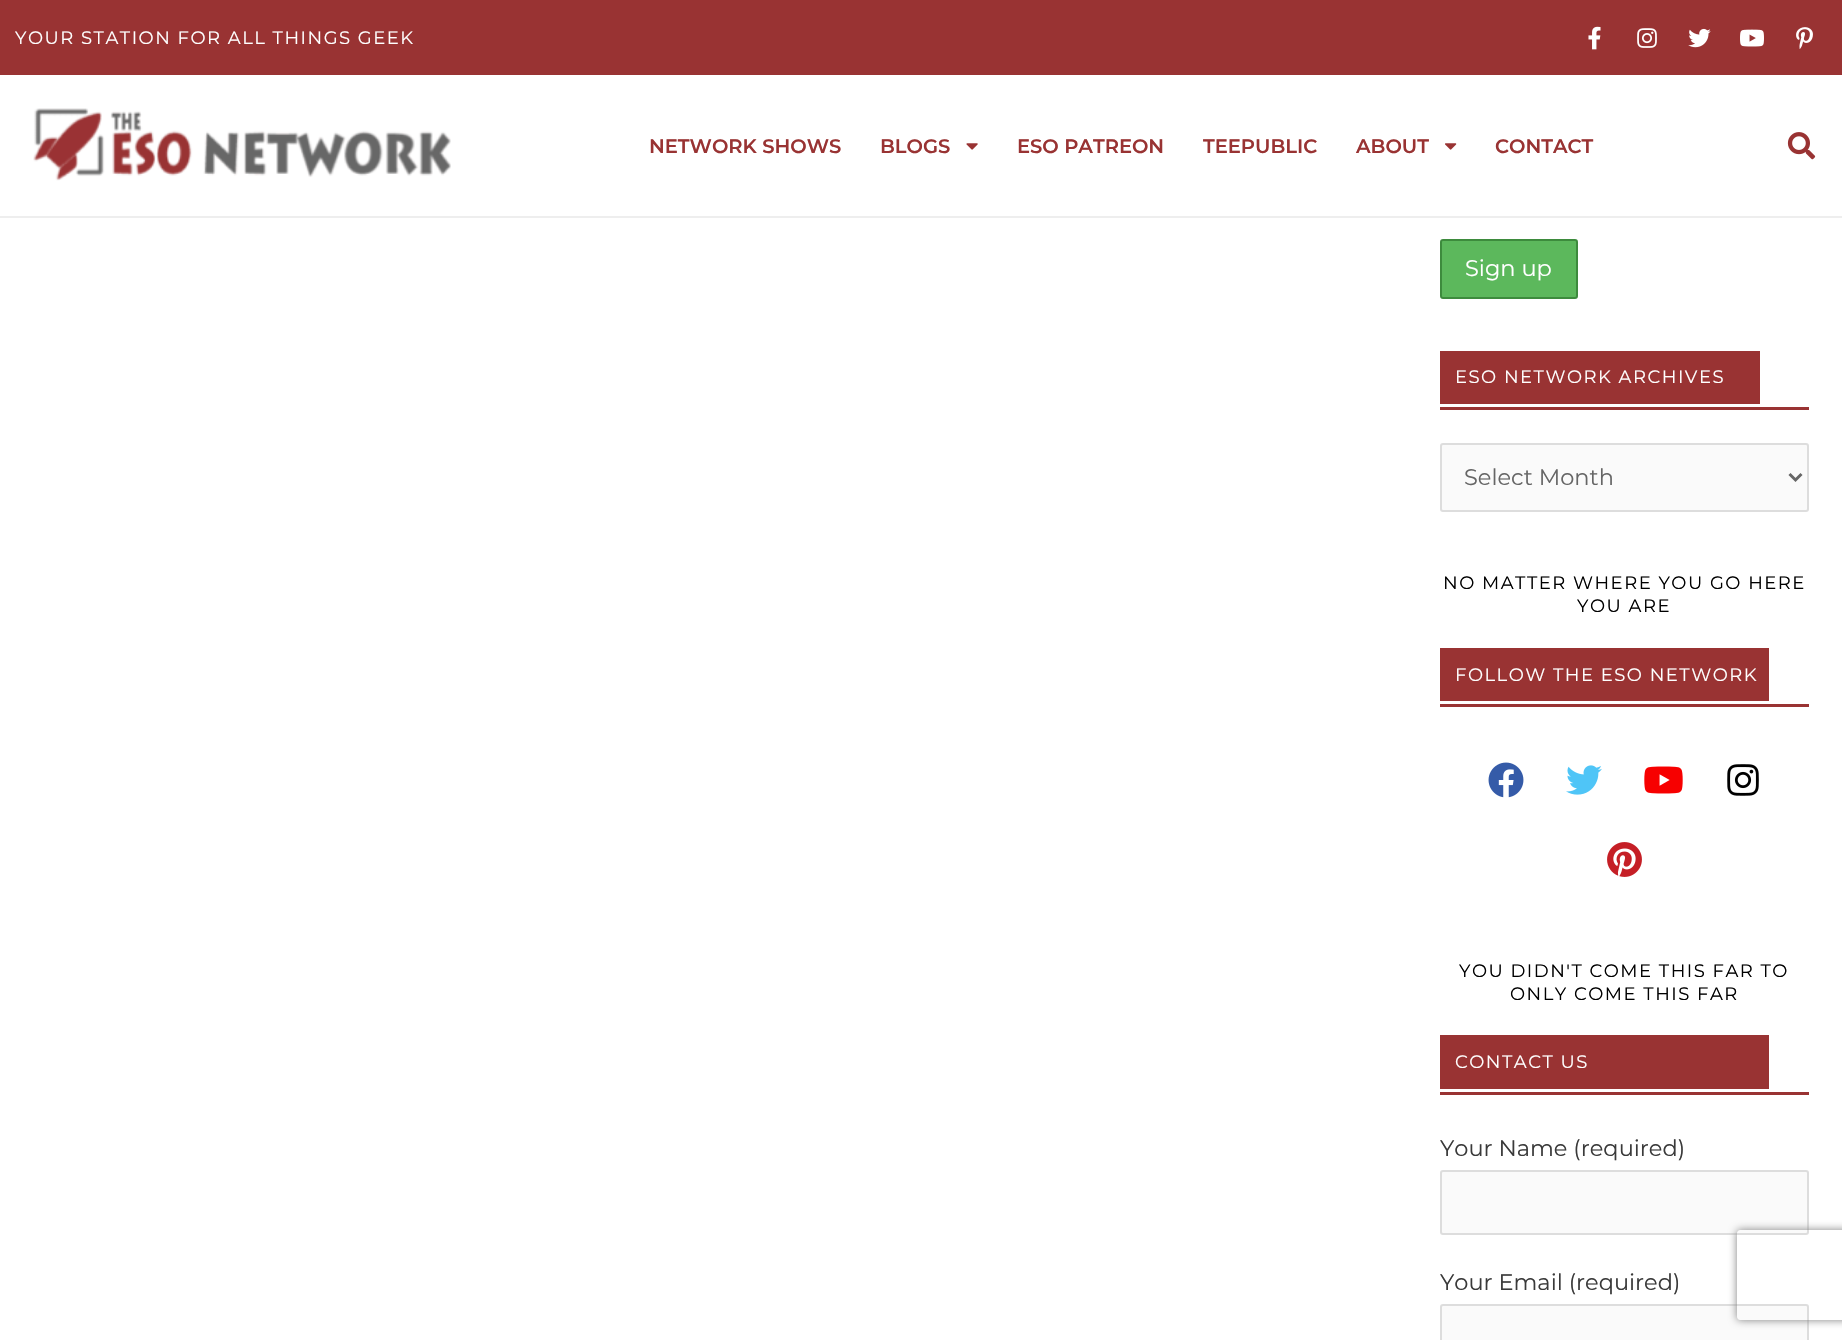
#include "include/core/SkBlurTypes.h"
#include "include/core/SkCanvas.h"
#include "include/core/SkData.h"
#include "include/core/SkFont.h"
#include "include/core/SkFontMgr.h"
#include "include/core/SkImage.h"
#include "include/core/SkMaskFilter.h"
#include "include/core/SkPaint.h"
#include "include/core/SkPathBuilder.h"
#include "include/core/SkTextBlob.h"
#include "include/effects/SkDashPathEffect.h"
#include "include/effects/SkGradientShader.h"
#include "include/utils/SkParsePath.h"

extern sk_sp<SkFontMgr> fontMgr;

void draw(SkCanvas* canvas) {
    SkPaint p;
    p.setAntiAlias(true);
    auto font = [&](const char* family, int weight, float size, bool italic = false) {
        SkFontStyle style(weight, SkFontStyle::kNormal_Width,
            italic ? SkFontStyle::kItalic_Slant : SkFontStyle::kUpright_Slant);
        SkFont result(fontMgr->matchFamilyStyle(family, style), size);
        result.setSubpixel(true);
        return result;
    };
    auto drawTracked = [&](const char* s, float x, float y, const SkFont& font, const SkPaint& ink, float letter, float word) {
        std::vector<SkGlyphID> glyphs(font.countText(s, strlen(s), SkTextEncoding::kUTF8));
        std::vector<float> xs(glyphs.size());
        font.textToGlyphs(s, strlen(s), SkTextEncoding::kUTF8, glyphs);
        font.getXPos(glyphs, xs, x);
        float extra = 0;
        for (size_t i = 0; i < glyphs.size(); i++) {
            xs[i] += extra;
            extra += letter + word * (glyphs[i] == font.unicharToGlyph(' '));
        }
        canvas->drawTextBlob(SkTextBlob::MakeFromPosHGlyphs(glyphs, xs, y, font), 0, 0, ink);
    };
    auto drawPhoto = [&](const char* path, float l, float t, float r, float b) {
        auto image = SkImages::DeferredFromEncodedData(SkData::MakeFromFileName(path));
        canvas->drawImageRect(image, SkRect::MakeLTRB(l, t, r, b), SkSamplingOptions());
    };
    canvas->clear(0xFFFFFFFF);
    p.setColor(0xFF993333);
    canvas->drawRect(SkRect::MakeLTRB(0, 0, 1842, 75), p);
    auto font1 = font("Montserrat", 400, 18);
    p.setColor(0xFFFFFFFF);
    drawTracked("YOUR STATION FOR ALL THINGS GEEK", 15, 44, font1, p, 1.5f, 0);
    drawPhoto("media/1.png", 1588, 26, 1601, 50);
    drawPhoto("media/2.png", 1637, 28, 1657, 48);
    drawPhoto("media/3.png", 1688, 28, 1711, 48);
    drawPhoto("media/4.png", 1740, 29, 1764, 47);
    drawPhoto("media/5.png", 1796, 27, 1813, 49);
    p.setColor(0xFFEEEEEE);
    canvas->drawRect(SkRect::MakeLTRB(0, 216, 1842, 218), p);
    drawPhoto("media/6.png", 33, 108, 451, 181);
    auto font2 = font("Montserrat", 600, 19.5f);
    p.setColor(0xFF993333);
    canvas->drawString("NETWORK SHOWS", 649, 153, font2, p);
    canvas->drawString("BLOGS", 880, 153, font2, p);
    drawPhoto("media/7.png", 966, 143, 978, 150);
    {
        const struct { const char* s; float x, y; } items[] = {
            {"ESO PATREON", 1017, 153},
            {"TEEPUBLIC", 1203, 153},
            {"ABOUT", 1356, 153},
        };
        for (auto [s, x, y] : items) {
            canvas->drawString(s, x, y, font2, p);
        }
    }
    drawPhoto("media/8.png", 1445, 143, 1457, 150);
    canvas->drawString("CONTACT", 1495, 153, font2, p);
    drawPhoto("media/9.png", 1787, 132, 1816, 160);
    p.setColor(0xFF5CB85C);
    canvas->drawRoundRect(SkRect::MakeLTRB(1441, 240, 1577, 298), 2, 2, p);
    p.setStyle(SkPaint::kStroke_Style);
    p.setStrokeWidth(2);
    p.setColor(0xFF3D8B3D);
    canvas->drawRoundRect(SkRect::MakeLTRB(1441, 240, 1577, 298), 2, 2, p);
    auto font3 = font("Montserrat", 400, 22.5f);
    p.setStyle(SkPaint::kFill_Style);
    p.setColor(0xFFFFFFFF);
    canvas->drawString("Sign up", 1465, 276, font3, p);
    p.setColor(0xFF993333);
    canvas->drawRect(SkRect::MakeLTRB(1440, 351, 1760, 404), p);
    p.setColor(0xFFFFFFFF);
    drawTracked("ESO NETWORK ARCHIVES", 1455, 383, font1, p, 1.5f, 0);
    p.setColor(0xFF993333);
    canvas->drawRect(SkRect::MakeLTRB(1440, 407, 1809, 410), p);
    p.setColor(0xFFFAFAFA);
    canvas->drawRoundRect(SkRect::MakeLTRB(1441, 444, 1808, 511), 2, 2, p);
    p.setStyle(SkPaint::kStroke_Style);
    p.setColor(0xFFDDDDDD);
    canvas->drawRoundRect(SkRect::MakeLTRB(1441, 444, 1808, 511), 2, 2, p);
    p.setStrokeWidth(3);
    p.setColor(0xFF666666);
    canvas->drawPath(SkPathBuilder().moveTo(1789.5f, 474).lineTo(1795.5f, 480).lineTo(1801.5f, 474).detach(), p);
    p.setStyle(SkPaint::kFill_Style);
    canvas->drawString("Select Month", 1464, 485, font3, p);
    p.setColor(0xFF000000);
    drawTracked("NO MATTER WHERE YOU GO HERE", 1443, 589, font1, p, 1.5f, 0);
    drawTracked("YOU ARE", 1577, 612, font1, p, 1.5f, 0);
    p.setColor(0xFF993333);
    canvas->drawRect(SkRect::MakeLTRB(1440, 648, 1769, 701), p);
    p.setColor(0xFFFFFFFF);
    drawTracked("FOLLOW THE ESO NETWORK", 1455, 681, font1, p, 1.5f, 0);
    p.setColor(0xFF993333);
    canvas->drawRect(SkRect::MakeLTRB(1440, 704, 1809, 707), p);
    drawPhoto("media/10.png", 1488, 762, 1524, 798);
    drawPhoto("media/11.png", 1566, 765, 1602, 795);
    drawPhoto("media/12.png", 1644, 766, 1683, 794);
    drawPhoto("media/13.png", 1727, 764, 1759, 796);
    drawPhoto("media/14.png", 1607, 842, 1642, 877);
    p.setColor(0xFF000000);
    drawTracked("YOU DIDN'T COME THIS FAR TO", 1459, 977, font1, p, 1.5f, 0);
    drawTracked("ONLY COME THIS FAR", 1510, 1000, font1, p, 1.5f, 0);
    p.setColor(0xFF993333);
    canvas->drawRect(SkRect::MakeLTRB(1440, 1035, 1769, 1089), p);
    p.setColor(0xFFFFFFFF);
    drawTracked("CONTACT US", 1455, 1068, font1, p, 1.5f, 0);
    p.setColor(0xFF993333);
    canvas->drawRect(SkRect::MakeLTRB(1440, 1092, 1809, 1095), p);
    p.setColor(0xFF3A3A3A);
    canvas->drawString("Your Name (required)", 1440, 1156, font3, p);
    p.setColor(0xFFFAFAFA);
    canvas->drawRoundRect(SkRect::MakeLTRB(1441, 1171, 1808, 1234), 2, 2, p);
    p.setStyle(SkPaint::kStroke_Style);
    p.setStrokeWidth(2);
    p.setColor(0xFFDDDDDD);
    canvas->drawRoundRect(SkRect::MakeLTRB(1441, 1171, 1808, 1234), 2, 2, p);
    p.setStyle(SkPaint::kFill_Style);
    p.setColor(0xFF3A3A3A);
    canvas->drawString("Your Email (required)", 1440, 1290, font3, p);
    p.setColor(0xFFFAFAFA);
    canvas->drawRoundRect(SkRect::MakeLTRB(1441, 1305, 1808, 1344), 2, 2, p);
    p.setStyle(SkPaint::kStroke_Style);
    p.setColor(0xFFDDDDDD);
    canvas->drawRoundRect(SkRect::MakeLTRB(1441, 1305, 1808, 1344), 2, 2, p);
    canvas->save();
    canvas->clipPath(SkPathBuilder(SkPathFillType::kEvenOdd).moveTo(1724, 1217).lineTo(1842, 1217).lineTo(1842, 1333).lineTo(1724, 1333).close().moveTo(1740, 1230).lineTo(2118, 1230).cubicTo(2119.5f, 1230, 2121, 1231.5f, 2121, 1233).lineTo(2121, 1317).cubicTo(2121, 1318.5f, 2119.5f, 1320, 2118, 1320).lineTo(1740, 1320).cubicTo(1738.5f, 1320, 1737, 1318.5f, 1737, 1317).lineTo(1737, 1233).cubicTo(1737, 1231.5f, 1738.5f, 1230, 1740, 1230).close().detach(), true);
    p.setStyle(SkPaint::kFill_Style);
    p.setColor(0xFF808080);
    p.setMaskFilter(SkMaskFilter::MakeBlur(kNormal_SkBlurStyle, 4));
    canvas->drawRoundRect(SkRect::MakeLTRB(1737, 1230, 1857, 1320), 3, 3, p);
    p.setMaskFilter(nullptr);
    canvas->restore();
}
